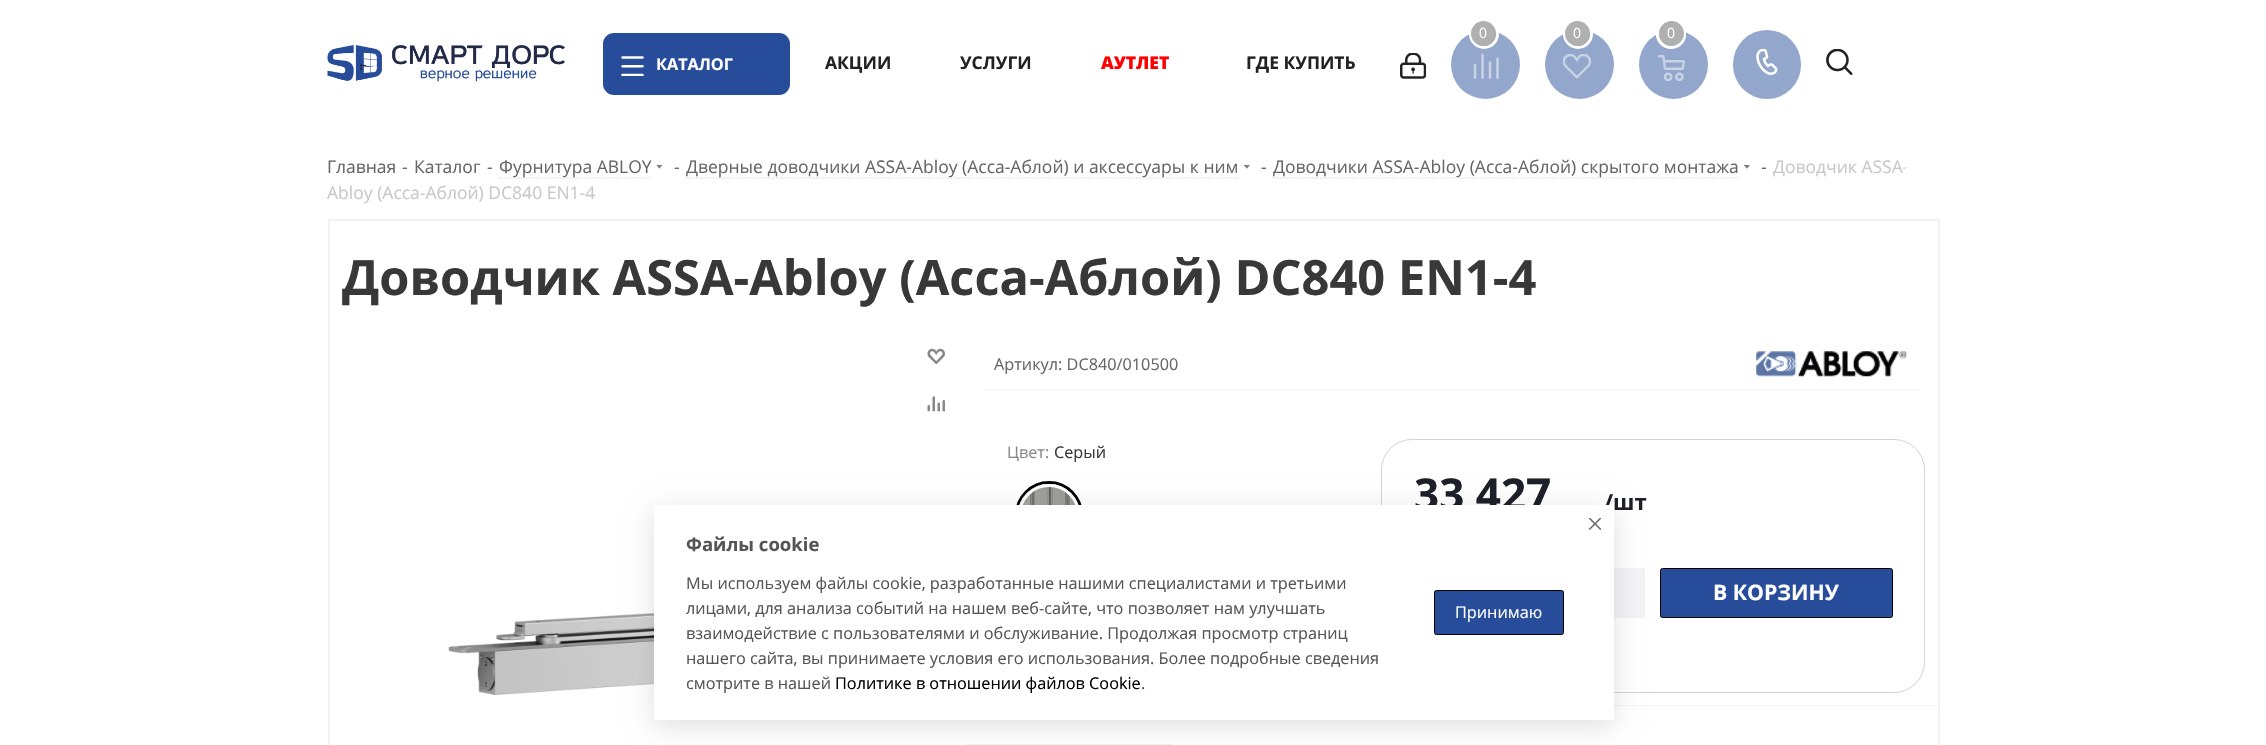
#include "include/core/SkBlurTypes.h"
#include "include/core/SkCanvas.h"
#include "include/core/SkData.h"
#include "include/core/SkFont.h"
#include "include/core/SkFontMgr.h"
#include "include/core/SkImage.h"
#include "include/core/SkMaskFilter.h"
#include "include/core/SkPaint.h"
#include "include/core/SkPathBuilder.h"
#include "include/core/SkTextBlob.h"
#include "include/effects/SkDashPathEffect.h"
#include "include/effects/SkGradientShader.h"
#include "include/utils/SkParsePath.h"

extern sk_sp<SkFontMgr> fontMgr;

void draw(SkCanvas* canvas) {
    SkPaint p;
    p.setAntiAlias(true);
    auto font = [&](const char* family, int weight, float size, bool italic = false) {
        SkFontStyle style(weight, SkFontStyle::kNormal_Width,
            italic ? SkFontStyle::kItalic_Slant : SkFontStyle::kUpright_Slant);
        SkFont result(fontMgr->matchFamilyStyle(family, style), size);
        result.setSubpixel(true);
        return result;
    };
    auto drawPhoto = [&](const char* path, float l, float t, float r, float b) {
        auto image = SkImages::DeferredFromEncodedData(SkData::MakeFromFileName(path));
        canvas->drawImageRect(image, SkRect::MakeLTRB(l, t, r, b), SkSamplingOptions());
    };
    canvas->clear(0xFFFFFFFF);
    drawPhoto("media/1.png", 327, 45, 565, 82);
    p.setColor(0xFF274C99);
    canvas->drawRoundRect(SkRect::MakeLTRB(603, 33, 790, 95), 11, 11, p);
    drawPhoto("media/2.png", 621, 56, 644, 76);
    auto font1 = font("Open Sans", 700, 16.25f);
    p.setColor(0xFFFFFFFF);
    canvas->drawString("КАТАЛОГ", 656, 70, font1, p);
    drawPhoto("media/3.png", 1400, 53, 1426, 79);
    p.setColor(0xFF93A6CC);
    canvas->drawCircle(1485.5f, 64.5f, 34.5f, p);
    p.setStyle(SkPaint::kStroke_Style);
    p.setStrokeWidth(3);
    p.setColor(0xFFFFFFFF);
    canvas->drawCircle(1484, 34, 13.5f, p);
    p.setStyle(SkPaint::kFill_Style);
    p.setColor(0xFFB0B0B0);
    canvas->drawCircle(1483.5f, 33.5f, 12.5f, p);
    auto font2 = font("Open Sans", 400, 14);
    p.setColor(0xFFFFFFFF);
    canvas->drawString("0", 1479, 38, font2, p);
    drawPhoto("media/4.png", 1473, 53, 1499, 79);
    p.setColor(0xFF93A6CC);
    canvas->drawCircle(1579.5f, 64.5f, 34.5f, p);
    p.setStyle(SkPaint::kStroke_Style);
    p.setColor(0xFFFFFFFF);
    canvas->drawCircle(1578, 34, 13.5f, p);
    p.setStyle(SkPaint::kFill_Style);
    p.setColor(0xFFB0B0B0);
    canvas->drawCircle(1577.5f, 33.5f, 12.5f, p);
    p.setColor(0xFFFFFFFF);
    canvas->drawString("0", 1573, 38, font2, p);
    drawPhoto("media/5.png", 1563, 54, 1591, 79);
    p.setColor(0xFF93A6CC);
    canvas->drawCircle(1673.5f, 64.5f, 34.5f, p);
    p.setStyle(SkPaint::kStroke_Style);
    p.setColor(0xFFFFFFFF);
    canvas->drawCircle(1671, 34, 13.5f, p);
    canvas->drawCircle(1671, 34, 13.5f, p);
    p.setStyle(SkPaint::kFill_Style);
    p.setColor(0xFFB0B0B0);
    canvas->drawCircle(1671.5f, 33.5f, 12.5f, p);
    p.setColor(0xFFFFFFFF);
    canvas->drawString("0", 1667, 38, font2, p);
    drawPhoto("media/6.png", 1658, 55, 1685, 81);
    p.setColor(0xFF93A6CC);
    canvas->drawRoundRect(SkRect::MakeLTRB(1733, 30, 1801, 99), 34, 34, p);
    drawPhoto("media/7.png", 1756, 49, 1778, 75);
    drawPhoto("media/8.png", 1826, 49, 1853, 75);
    auto font3 = font("Open Sans", 700, 17.5f);
    p.setColor(0xFF222222);
    canvas->drawString("АКЦИИ", 825, 69, font3, p);
    canvas->drawString("УСЛУГИ", 960, 69, font3, p);
    auto font4 = font("Open Sans", 800, 17.5f);
    p.setColor(0xFFFF0000);
    canvas->drawString("АУТЛЕТ", 1101, 69, font4, p);
    p.setColor(0xFF222222);
    canvas->drawString("ГДЕ КУПИТЬ", 1246, 69, font3, p);
    auto font5 = font("Open Sans", 400, 17.5f);
    p.setColor(0xFF666666);
    {
        const struct { const char* s; float x, y; } items[] = {
            {"Главная", 327, 173},
            {"-", 402, 173},
            {"Каталог", 414, 173},
            {"-", 487, 173},
        };
        for (auto [s, x, y] : items) {
            canvas->drawString(s, x, y, font5, p);
        }
    }
    p.setStyle(SkPaint::kStroke_Style);
    p.setStrokeWidth(1.2f);
    p.setColor(0xFFD2D2D2);
    p.setPathEffect(SkDashPathEffect::Make({{1.25f, 1.25f}}, 0));
    canvas->drawPath(SkPathBuilder().moveTo(499, 178).lineTo(651, 178).detach(), p);
    p.setPathEffect(nullptr);
    p.setStyle(SkPaint::kFill_Style);
    p.setColor(0xFF666666);
    canvas->drawString("Фурнитура ABLOY", 499, 173, font5, p);
    drawPhoto("media/9.png", 656, 165, 663, 169);
    canvas->drawString("-", 674, 173, font5, p);
    p.setStyle(SkPaint::kStroke_Style);
    p.setColor(0xFFD2D2D2);
    p.setPathEffect(SkDashPathEffect::Make({{1.25f, 1.25f}}, 0));
    canvas->drawPath(SkPathBuilder().moveTo(686, 178).lineTo(1239, 178).detach(), p);
    p.setPathEffect(nullptr);
    p.setStyle(SkPaint::kFill_Style);
    p.setColor(0xFF666666);
    canvas->drawString("Дверные доводчики ASSA-Abloy (Асса-Аблой) и аксессуары к ним", 686, 173, font5, p);
    drawPhoto("media/10.png", 1244, 165, 1250, 169);
    canvas->drawString("-", 1261, 173, font5, p);
    p.setStyle(SkPaint::kStroke_Style);
    p.setColor(0xFFD2D2D2);
    p.setPathEffect(SkDashPathEffect::Make({{1.25f, 1.25f}}, 0));
    canvas->drawPath(SkPathBuilder().moveTo(1272.5f, 178).lineTo(1739, 178).detach(), p);
    p.setPathEffect(nullptr);
    p.setStyle(SkPaint::kFill_Style);
    p.setColor(0xFF666666);
    canvas->drawString("Доводчики ASSA-Abloy (Асса-Аблой) скрытого монтажа", 1273, 173, font5, p);
    drawPhoto("media/10.png", 1744, 165, 1750, 169);
    canvas->drawString("-", 1761, 173, font5, p);
    p.setColor(0xFFC8C8C8);
    canvas->drawString("Доводчик ASSA-", 1773, 173, font5, p);
    canvas->drawString("Abloy (Асса-Аблой) DC840 EN1-4", 327, 199, font5, p);
    drawPhoto("media/11.png", 1904, 167, 1908, 169);
    p.setStyle(SkPaint::kStroke_Style);
    p.setStrokeWidth(1);
    p.setColor(0xFFF2F2F2);
    canvas->drawRect(SkRect::MakeLTRB(328.5f, 219.5f, 1939.5f, 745.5f), p);
    canvas->drawRect(SkRect::MakeLTRB(329.5f, 220.5f, 1938.5f, 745.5f), p);
    auto font6 = font("Open Sans", 700, 48.75f);
    p.setStyle(SkPaint::kFill_Style);
    p.setColor(0xFF383838);
    canvas->drawString("Доводчик ASSA-Abloy (Асса-Аблой) DC840 EN1-4", 342, 295, font6, p);
    drawPhoto("media/12.png", 927, 348, 945, 365);
    drawPhoto("media/13.png", 927, 396, 945, 412);
    drawPhoto("media/14.png", 448, 598, 654, 695);
    p.setColor(0xFFF2F2F2);
    canvas->drawRect(SkRect::MakeLTRB(983, 389, 1919, 390), p);
    auto font7 = font("Open Sans", 400, 16.25f);
    p.setColor(0xFF666666);
    canvas->drawString("Артикул: DC840/010500", 994, 370, font7, p);
    drawPhoto("media/15.png", 1756, 351, 1907, 377);
    p.setColor(0xFF888888);
    canvas->drawString("Цвет:", 1007, 458, font7, p);
    p.setColor(0xFF383838);
    canvas->drawString("Серый", 1054, 458, font7, p);
    p.setStyle(SkPaint::kStroke_Style);
    p.setStrokeWidth(3);
    p.setColor(0xFF000000);
    canvas->drawCircle(1049, 515, 32.5f, p);
    drawPhoto("media/16.png", 1019, 483, 1079, 505);
    p.setColor(0xFFFFFFFF);
    canvas->drawCircle(1049, 515, 29.5f, p);
    p.setStrokeWidth(1);
    p.setColor(0xFFD3D3D3);
    canvas->drawRoundRect(SkRect::MakeLTRB(1381.5f, 439.5f, 1924.5f, 692.5f), 30.5f, 30.5f, p);
    auto font8 = font("Open Sans", 700, 44);
    p.setStyle(SkPaint::kFill_Style);
    p.setColor(0xFF1D2029);
    canvas->drawString("33 427", 1414, 510, font8, p);
    auto font9 = font("Open Sans", 700, 22);
    canvas->drawString("/шт", 1604, 510, font9, p);
    p.setColor(0xFFF3F3F5);
    canvas->drawRoundRect(SkRect::MakeLTRB(1414, 568, 1645, 618), 2.5f, 2.5f, p);
    p.setColor(0xFF274C99);
    canvas->drawRoundRect(SkRect::MakeLTRB(1660.5f, 568.5f, 1892.5f, 617.5f), 2, 2, p);
    p.setStyle(SkPaint::kStroke_Style);
    p.setColor(0xFF000000);
    canvas->drawRoundRect(SkRect::MakeLTRB(1660.5f, 568.5f, 1892.5f, 617.5f), 2, 2, p);
    auto font10 = font("Open Sans", 700, 21.25f);
    p.setStyle(SkPaint::kFill_Style);
    p.setColor(0xFFFFFFFF);
    canvas->drawString("В КОРЗИНУ", 1713, 600, font10, p);
    p.setColor(0xFFF2F2F2);
    canvas->drawRect(SkRect::MakeLTRB(1614, 705, 1938, 706), p);
    p.setStyle(SkPaint::kStroke_Style);
    canvas->drawRoundRect(SkRect::MakeLTRB(964.5f, 744.5f, 1172.5f, 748.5f), 2, 2, p);
    p.setStyle(SkPaint::kFill_Style);
    p.setColor(0x1F000000);
    p.setMaskFilter(SkMaskFilter::MakeBlur(kNormal_SkBlurStyle, 12.5f));
    canvas->drawRect(SkRect::MakeLTRB(654, 511, 1614, 726), p);
    p.setMaskFilter(nullptr);
    p.setColor(0xFFFFFFFF);
    canvas->drawRect(SkRect::MakeLTRB(654, 505, 1614, 720), p);
    drawPhoto("media/17.png", 1589, 518, 1601, 530);
    auto font11 = font("Open Sans", 700, 18.5f);
    p.setColor(0xFF555555);
    canvas->drawString("Файлы cookie", 686, 551, font11, p);
    {
        const struct { const char* s; float x, y; } items[] = {
            {"Мы используем файлы cookie, разработанные нашими специалистами и третьими", 686, 589},
            {"лицами, для анализа событий на нашем веб-сайте, что позволяет нам улучшать", 686, 614},
            {"взаимодействие с пользователями и обслуживание. Продолжая просмотр страниц", 686, 639},
            {"нашего сайта, вы принимаете условия его использования. Более подробные сведения", 686, 664},
            {"смотрите в нашей", 686, 689},
        };
        for (auto [s, x, y] : items) {
            canvas->drawString(s, x, y, font7, p);
        }
    }
    p.setColor(0xFF000000);
    canvas->drawString("Политике в отношении файлов Cookie", 835, 689, font7, p);
    p.setColor(0xFF555555);
    canvas->drawString(".", 1141, 689, font7, p);
    p.setColor(0xFF274C99);
    canvas->drawRoundRect(SkRect::MakeLTRB(1434.5f, 590.5f, 1563.5f, 634.5f), 2, 2, p);
    p.setStyle(SkPaint::kStroke_Style);
    p.setColor(0xFF000000);
    canvas->drawRoundRect(SkRect::MakeLTRB(1434.5f, 590.5f, 1563.5f, 634.5f), 2, 2, p);
    p.setStyle(SkPaint::kFill_Style);
    p.setColor(0xFFFFFFFF);
    canvas->drawString("Принимаю", 1455, 618, font7, p);
}
